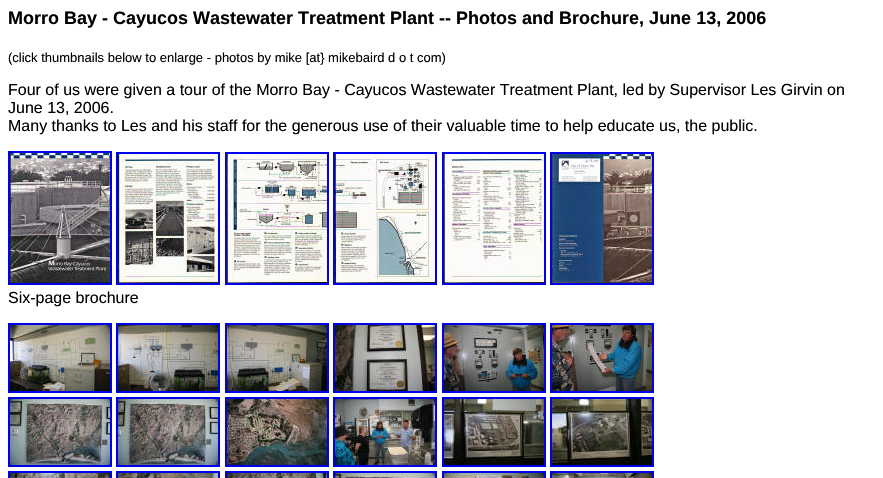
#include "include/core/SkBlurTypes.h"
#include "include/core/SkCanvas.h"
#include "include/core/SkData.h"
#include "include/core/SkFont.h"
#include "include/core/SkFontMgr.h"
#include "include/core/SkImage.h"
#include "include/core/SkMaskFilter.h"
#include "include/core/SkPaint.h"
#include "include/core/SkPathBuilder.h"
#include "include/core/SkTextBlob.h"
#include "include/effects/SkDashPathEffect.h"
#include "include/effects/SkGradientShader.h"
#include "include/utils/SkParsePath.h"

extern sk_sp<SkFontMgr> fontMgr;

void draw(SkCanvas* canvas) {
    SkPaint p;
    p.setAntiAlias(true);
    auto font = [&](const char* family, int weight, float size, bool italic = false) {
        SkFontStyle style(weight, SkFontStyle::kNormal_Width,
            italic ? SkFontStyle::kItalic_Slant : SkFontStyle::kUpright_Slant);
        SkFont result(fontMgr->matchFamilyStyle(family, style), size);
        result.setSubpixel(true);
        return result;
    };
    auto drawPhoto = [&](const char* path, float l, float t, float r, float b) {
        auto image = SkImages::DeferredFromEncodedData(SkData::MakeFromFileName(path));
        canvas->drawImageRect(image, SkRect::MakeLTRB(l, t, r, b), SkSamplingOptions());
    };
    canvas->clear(0xFFFFFFFF);
    auto font1 = font("Liberation Sans", 700, 18);
    p.setColor(0xFF000000);
    canvas->drawString("Morro Bay - Cayucos Wastewater Treatment Plant -- Photos and Brochure, June 13, 2006", 8, 24, font1, p);
    auto font2 = font("Liberation Sans", 400, 13);
    canvas->drawString("(click thumbnails below to enlarge - photos by mike [at} mikebaird d o t com)", 8, 62, font2, p);
    auto font3 = font("Liberation Sans", 400, 16);
    {
        const struct { const char* s; float x, y; } items[] = {
            {"Four of us were given a tour of the Morro Bay - Cayucos Wastewater Treatment Plant, led by Supervisor Les Girvin on", 8, 95},
            {"June 13, 2006.", 8, 113},
            {"Many thanks to Les and his staff for the generous use of their valuable time to help educate us, the public.", 8, 131},
        };
        for (auto [s, x, y] : items) {
            canvas->drawString(s, x, y, font3, p);
        }
    }
    p.setStyle(SkPaint::kStroke_Style);
    p.setStrokeWidth(2);
    p.setColor(0xFF0000EE);
    canvas->drawRect(SkRect::MakeLTRB(9, 152, 111, 284), p);
    drawPhoto("media/1.png", 10, 153, 110, 283);
    canvas->drawRect(SkRect::MakeLTRB(117, 153, 219, 284), p);
    drawPhoto("media/2.png", 118, 154, 218, 283);
    canvas->drawRect(SkRect::MakeLTRB(226, 153, 328, 284), p);
    drawPhoto("media/3.png", 227, 154, 327, 283);
    canvas->drawRect(SkRect::MakeLTRB(334, 153, 436, 284), p);
    drawPhoto("media/4.png", 335, 154, 435, 283);
    canvas->drawRect(SkRect::MakeLTRB(443, 153, 545, 284), p);
    drawPhoto("media/5.png", 444, 154, 544, 283);
    canvas->drawRect(SkRect::MakeLTRB(551, 153, 653, 284), p);
    drawPhoto("media/6.png", 552, 154, 652, 283);
    p.setStyle(SkPaint::kFill_Style);
    p.setColor(0xFF000000);
    canvas->drawString("Six-page brochure", 8, 303, font3, p);
    p.setStyle(SkPaint::kStroke_Style);
    p.setColor(0xFF0000EE);
    canvas->drawRect(SkRect::MakeLTRB(9, 324, 111, 392), p);
    canvas->drawRect(SkRect::MakeLTRB(117, 324, 219, 392), p);
    canvas->drawRect(SkRect::MakeLTRB(226, 324, 328, 392), p);
    canvas->drawRect(SkRect::MakeLTRB(334, 324, 436, 392), p);
    canvas->drawRect(SkRect::MakeLTRB(443, 324, 545, 392), p);
    canvas->drawRect(SkRect::MakeLTRB(551, 324, 653, 392), p);
    drawPhoto("media/7.png", 10, 325, 110, 391);
    drawPhoto("media/8.png", 118, 325, 218, 391);
    drawPhoto("media/9.png", 227, 325, 327, 391);
    drawPhoto("media/10.png", 335, 325, 435, 391);
    drawPhoto("media/11.png", 444, 325, 544, 391);
    drawPhoto("media/12.png", 552, 325, 652, 391);
    canvas->drawRect(SkRect::MakeLTRB(9, 398, 111, 466), p);
    canvas->drawRect(SkRect::MakeLTRB(117, 398, 219, 466), p);
    canvas->drawRect(SkRect::MakeLTRB(226, 398, 328, 466), p);
    canvas->drawRect(SkRect::MakeLTRB(334, 398, 436, 466), p);
    canvas->drawRect(SkRect::MakeLTRB(443, 398, 545, 466), p);
    canvas->drawRect(SkRect::MakeLTRB(551, 398, 653, 466), p);
    drawPhoto("media/13.png", 10, 399, 110, 465);
    drawPhoto("media/14.png", 118, 399, 218, 465);
    drawPhoto("media/15.png", 227, 399, 327, 465);
    drawPhoto("media/16.png", 335, 399, 435, 465);
    drawPhoto("media/17.png", 444, 399, 544, 465);
    drawPhoto("media/18.png", 552, 399, 652, 465);
    canvas->drawRect(SkRect::MakeLTRB(9, 472, 111, 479), p);
    canvas->drawRect(SkRect::MakeLTRB(117, 472, 219, 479), p);
    canvas->drawRect(SkRect::MakeLTRB(226, 472, 328, 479), p);
    canvas->drawRect(SkRect::MakeLTRB(334, 472, 436, 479), p);
    canvas->drawRect(SkRect::MakeLTRB(443, 472, 545, 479), p);
    canvas->drawRect(SkRect::MakeLTRB(551, 472, 653, 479), p);
    drawPhoto("media/19.png", 10, 473, 110, 478);
    drawPhoto("media/20.png", 118, 473, 218, 478);
    drawPhoto("media/21.png", 227, 473, 327, 478);
    drawPhoto("media/22.png", 335, 473, 435, 478);
    drawPhoto("media/23.png", 444, 473, 544, 478);
    drawPhoto("media/24.png", 552, 473, 652, 478);
}
